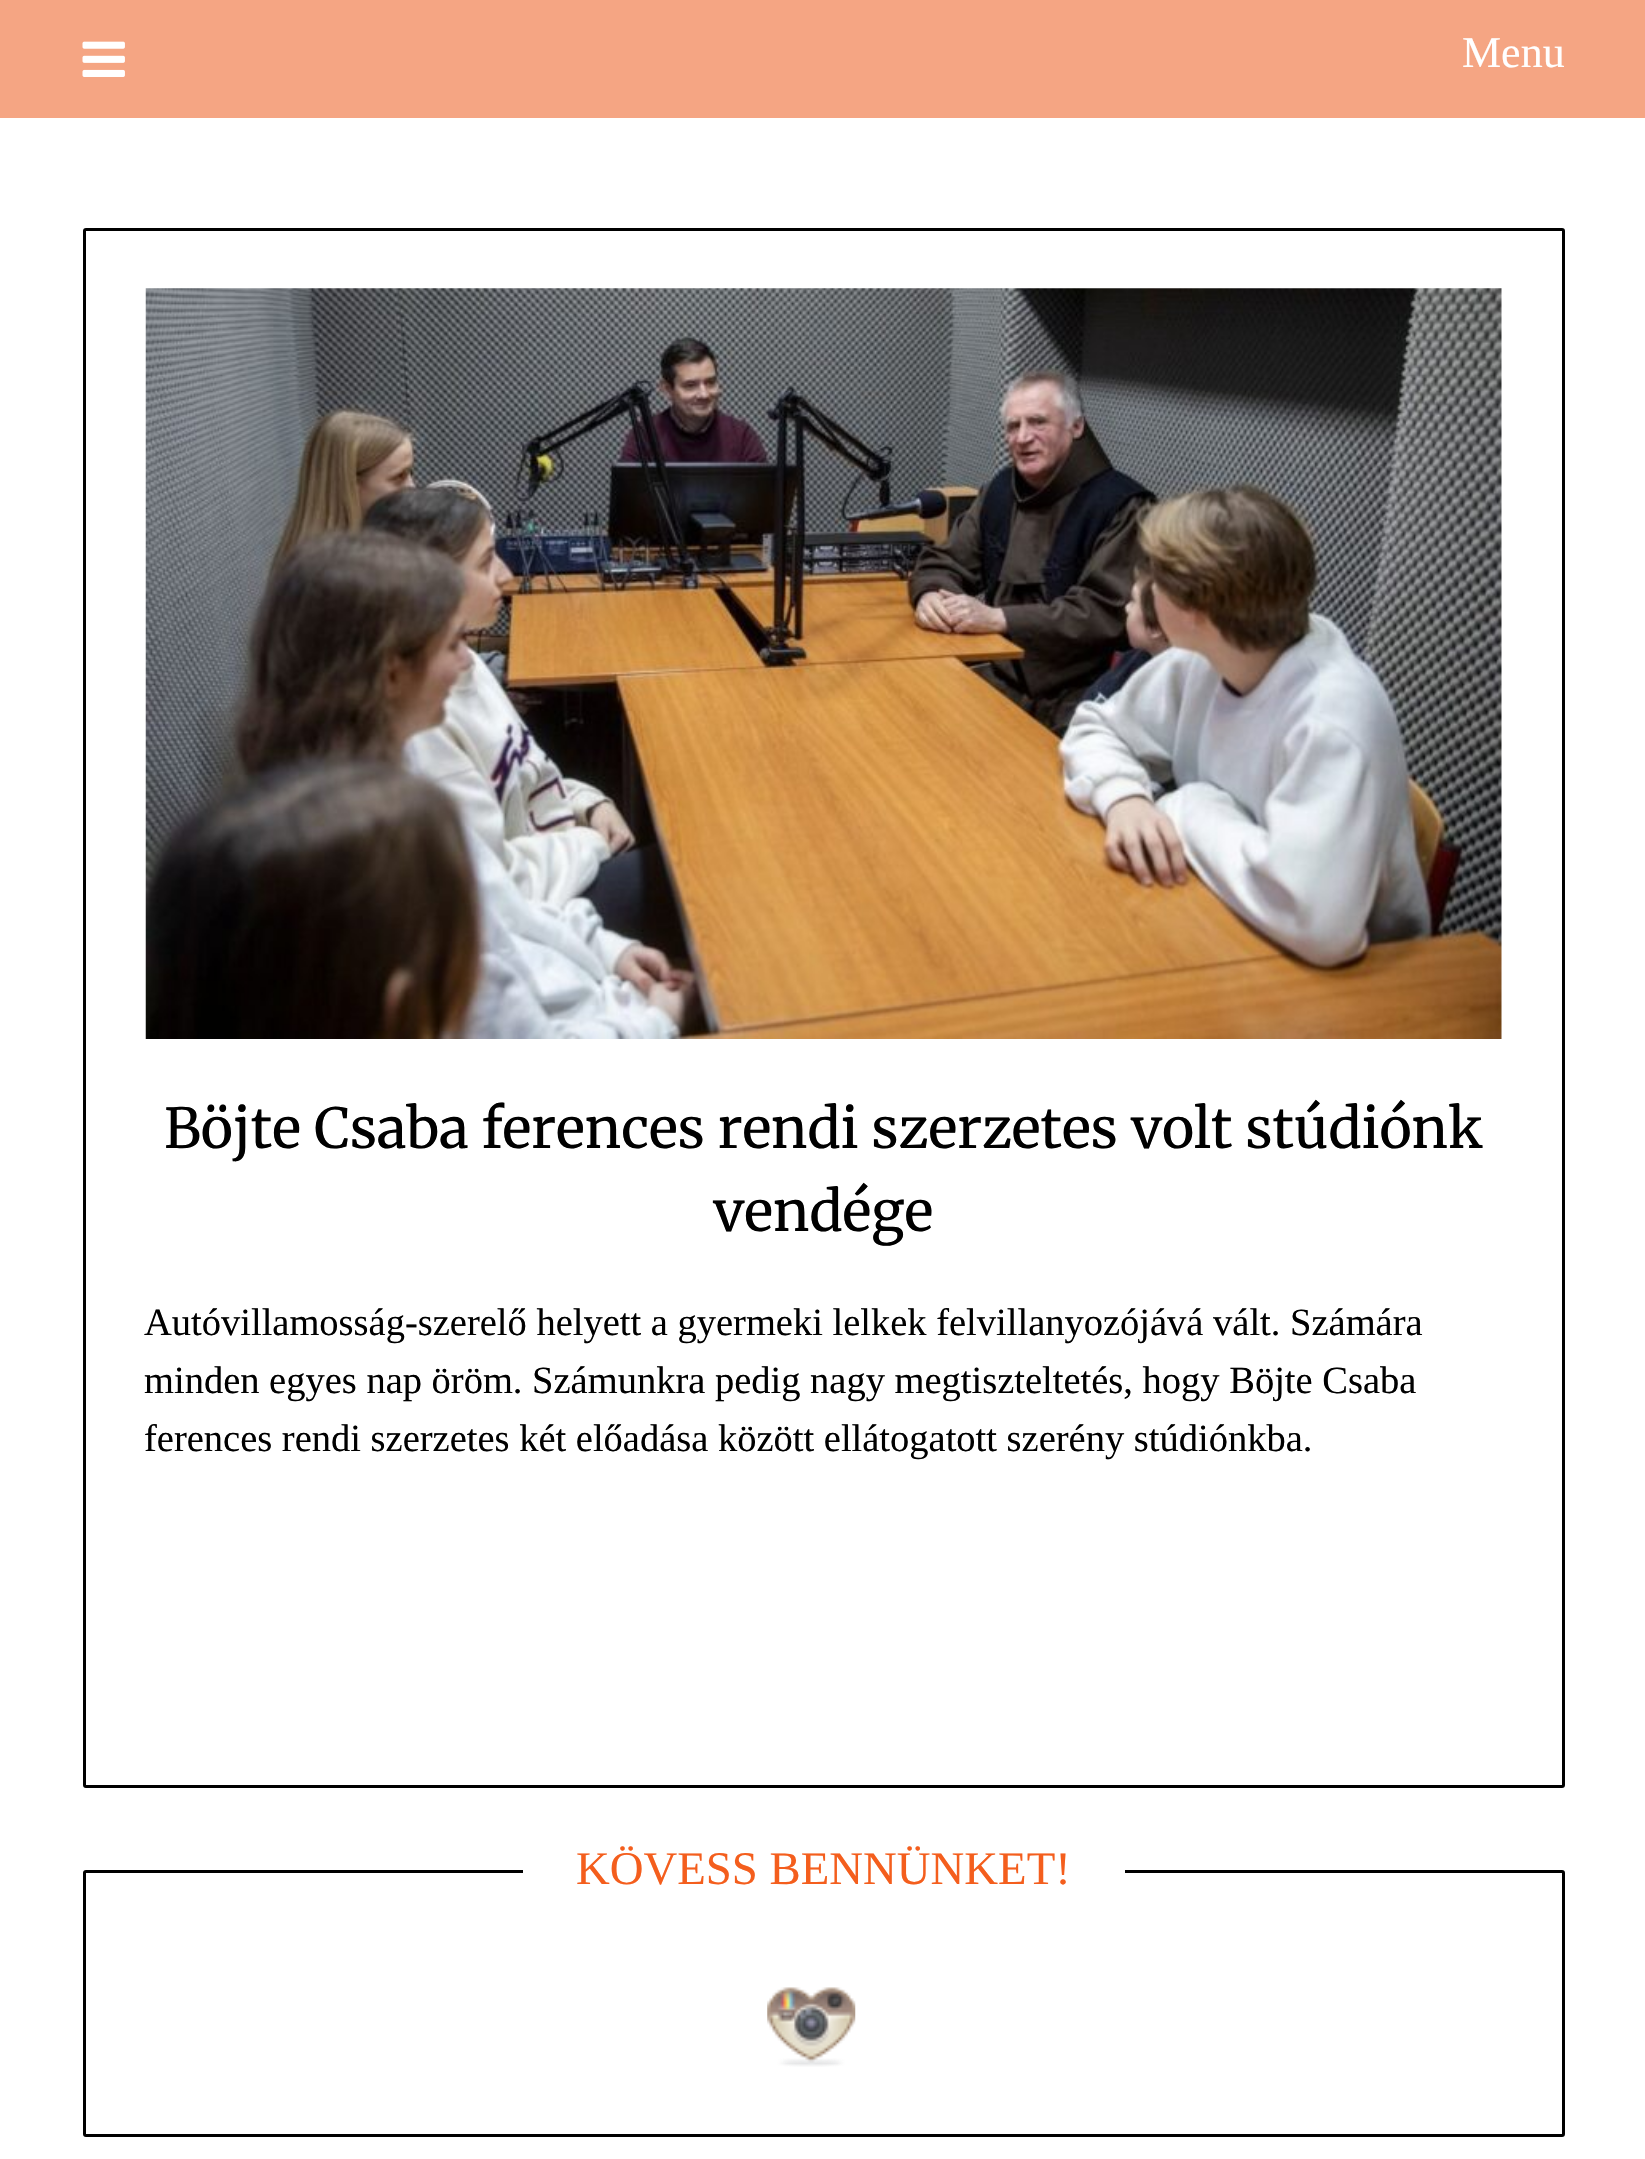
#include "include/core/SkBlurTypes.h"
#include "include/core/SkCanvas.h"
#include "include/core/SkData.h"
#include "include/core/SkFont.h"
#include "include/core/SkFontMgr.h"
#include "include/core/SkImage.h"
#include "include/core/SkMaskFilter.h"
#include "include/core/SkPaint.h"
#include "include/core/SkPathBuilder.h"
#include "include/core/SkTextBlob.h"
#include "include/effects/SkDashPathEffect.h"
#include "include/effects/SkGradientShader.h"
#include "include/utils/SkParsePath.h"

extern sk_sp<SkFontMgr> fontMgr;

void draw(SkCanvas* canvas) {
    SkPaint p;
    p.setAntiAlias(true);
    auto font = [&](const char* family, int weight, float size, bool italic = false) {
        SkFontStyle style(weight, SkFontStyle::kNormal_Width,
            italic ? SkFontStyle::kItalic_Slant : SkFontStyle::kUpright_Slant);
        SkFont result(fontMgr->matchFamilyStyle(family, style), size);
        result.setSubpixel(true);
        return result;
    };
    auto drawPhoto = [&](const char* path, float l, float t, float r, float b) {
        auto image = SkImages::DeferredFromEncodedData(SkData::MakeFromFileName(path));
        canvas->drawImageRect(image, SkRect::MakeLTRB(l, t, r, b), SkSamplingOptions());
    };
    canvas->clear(0xFFFFFFFF);
    p.setColor(0xFFF5A583);
    canvas->drawRect(SkRect::MakeLTRB(0, 0, 1645, 118), p);
    drawPhoto("media/1.png", 82, 41, 125, 77);
    auto font1 = font("Liberation Serif", 400, 44);
    p.setColor(0xFFFFFFFF);
    canvas->drawString("Menu", 1462, 67, font1, p);
    p.setStyle(SkPaint::kStroke_Style);
    p.setStrokeWidth(3);
    p.setColor(0xFF000000);
    canvas->drawRoundRect(SkRect::MakeLTRB(84.5f, 229.5f, 1563.5f, 1786.5f), 1.5f, 1.5f, p);
    drawPhoto("media/2.png", 145, 288, 1502, 1039);
    auto font2 = font("Merriweather", 400, 55);
    p.setStyle(SkPaint::kFill_Style);
    canvas->drawString("Böjte Csaba ferences rendi szerzetes volt stúdiónk", 164, 1148, font2, p);
    canvas->drawString("vendége", 713, 1231, font2, p);
    auto font3 = font("Liberation Serif", 400, 38.5f);
    {
        const struct { const char* s; float x, y; } items[] = {
            {"Autóvillamosság-szerelő helyett a gyermeki lelkek felvillanyozójává vált. Számára", 144, 1335},
            {"minden egyes nap öröm. Számunkra pedig nagy megtiszteltetés, hogy Böjte Csaba", 144, 1393},
            {"ferences rendi szerzetes két előadása között ellátogatott szerény stúdiónkba.", 144, 1451},
        };
        for (auto [s, x, y] : items) {
            canvas->drawString(s, x, y, font3, p);
        }
    }
    p.setStyle(SkPaint::kStroke_Style);
    canvas->drawRoundRect(SkRect::MakeLTRB(84.5f, 1871.5f, 1563.5f, 2135.5f), 1.5f, 1.5f, p);
    p.setStyle(SkPaint::kFill_Style);
    p.setColor(0xFFFFFFFF);
    canvas->drawRect(SkRect::MakeLTRB(523, 1870, 1125, 1873), p);
    auto font4 = font("Liberation Serif", 400, 46.75f);
    p.setColor(0xFFF45E1D);
    canvas->drawString("KÖVESS BENNÜNKET!", 576, 1884, font4, p);
    drawPhoto("media/3.png", 767, 1987, 856, 2067);
}
